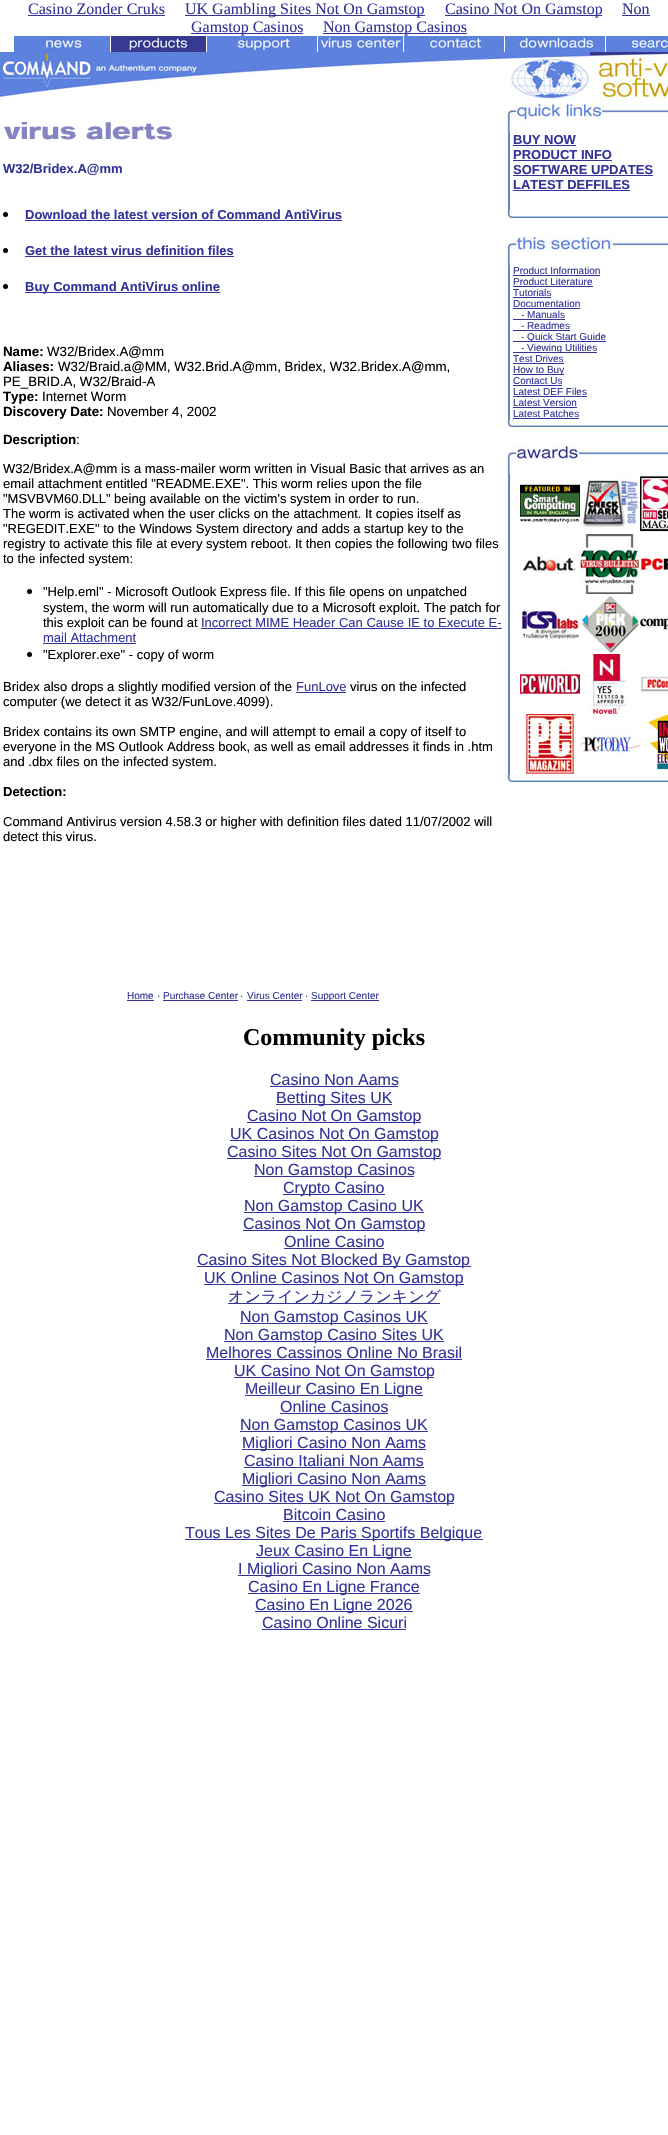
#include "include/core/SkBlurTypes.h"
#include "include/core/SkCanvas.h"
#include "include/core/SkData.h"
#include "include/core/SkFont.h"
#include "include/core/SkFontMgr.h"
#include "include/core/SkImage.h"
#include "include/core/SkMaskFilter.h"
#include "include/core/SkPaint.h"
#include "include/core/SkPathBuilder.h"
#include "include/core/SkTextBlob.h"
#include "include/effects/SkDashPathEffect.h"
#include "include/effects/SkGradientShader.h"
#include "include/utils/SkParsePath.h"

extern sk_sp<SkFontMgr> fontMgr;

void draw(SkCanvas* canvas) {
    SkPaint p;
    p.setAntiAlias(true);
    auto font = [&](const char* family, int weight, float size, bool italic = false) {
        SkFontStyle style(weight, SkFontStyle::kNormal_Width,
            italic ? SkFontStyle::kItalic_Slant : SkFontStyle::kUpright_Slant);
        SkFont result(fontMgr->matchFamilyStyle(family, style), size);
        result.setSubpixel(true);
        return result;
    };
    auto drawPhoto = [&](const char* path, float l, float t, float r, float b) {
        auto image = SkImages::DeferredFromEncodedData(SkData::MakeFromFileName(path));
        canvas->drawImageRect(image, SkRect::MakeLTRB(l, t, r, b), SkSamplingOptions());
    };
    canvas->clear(0xFFFFFFFF);
    auto font1 = font("Liberation Serif", 400, 16);
    p.setColor(0xFF333399);
    canvas->drawString("Casino Zonder Cruks", 28, 14, font1, p);
    canvas->drawRect(SkRect::MakeLTRB(28, 15, 165, 16), p);
    canvas->drawRect(SkRect::MakeLTRB(185, 15, 425, 16), p);
    canvas->drawString("UK Gambling Sites Not On Gamstop", 185, 14, font1, p);
    canvas->drawRect(SkRect::MakeLTRB(445, 15, 602, 16), p);
    canvas->drawString("Casino Not On Gamstop", 445, 14, font1, p);
    canvas->drawString("Non", 622, 14, font1, p);
    canvas->drawRect(SkRect::MakeLTRB(622, 15, 650, 16), p);
    canvas->drawRect(SkRect::MakeLTRB(191, 33, 303, 34), p);
    canvas->drawString("Gamstop Casinos", 191, 32, font1, p);
    canvas->drawRect(SkRect::MakeLTRB(323, 33, 467, 34), p);
    canvas->drawString("Non Gamstop Casinos", 323, 32, font1, p);
    drawPhoto("media/1.png", 14, 36, 110, 52);
    drawPhoto("media/2.png", 111, 36, 206, 52);
    drawPhoto("media/3.png", 207, 36, 317, 52);
    drawPhoto("media/4.png", 318, 36, 403, 52);
    drawPhoto("media/5.png", 404, 36, 504, 52);
    drawPhoto("media/6.png", 505, 36, 605, 52);
    drawPhoto("media/7.png", 606, 36, 668, 52);
    drawPhoto("media/8.png", 0, 52, 510, 100);
    drawPhoto("media/9.png", 510, 52, 590, 100);
    drawPhoto("media/10.png", 590, 52, 668, 100);
    drawPhoto("media/11.png", 4, 122, 172, 140);
    auto font2 = font("Liberation Sans", 700, 13);
    canvas->drawString("W32/Bridex.A@mm", 3, 173, font2, p);
    p.setColor(0xFF000000);
    canvas->drawCircle(5.5f, 214.5f, 2.5f, p);
    p.setColor(0xFF333399);
    canvas->drawString("Download the latest version of Command AntiVirus", 25, 219, font2, p);
    canvas->drawRect(SkRect::MakeLTRB(25, 220, 342, 221), p);
    p.setColor(0xFF000000);
    canvas->drawCircle(5.5f, 250.5f, 2.5f, p);
    p.setColor(0xFF333399);
    canvas->drawString("Get the latest virus definition files", 25, 255, font2, p);
    canvas->drawRect(SkRect::MakeLTRB(25, 256, 234, 257), p);
    p.setColor(0xFF000000);
    canvas->drawCircle(5.5f, 286.5f, 2.5f, p);
    p.setColor(0xFF333399);
    canvas->drawRect(SkRect::MakeLTRB(25, 292, 220, 293), p);
    canvas->drawString("Buy Command AntiVirus online", 25, 291, font2, p);
    auto font3 = font("Liberation Sans", 700, 13.3f);
    p.setColor(0xFF000000);
    canvas->drawString("Name:", 3, 356, font3, p);
    auto font4 = font("Liberation Sans", 400, 13.3f);
    canvas->drawString("W32/Bridex.A@mm", 47, 356, font4, p);
    canvas->drawString("Aliases:", 3, 371, font3, p);
    canvas->drawString("W32/Braid.a@MM, W32.Brid.A@mm, Bridex, W32.Bridex.A@mm,", 58, 371, font4, p);
    canvas->drawString("PE_BRID.A, W32/Braid-A", 3, 386, font4, p);
    canvas->drawString("Type:", 3, 401, font3, p);
    canvas->drawString("Internet Worm", 42, 401, font4, p);
    canvas->drawString("Discovery Date:", 3, 416, font3, p);
    canvas->drawString("November 4, 2002", 107, 416, font4, p);
    canvas->drawString("Description", 3, 444, font3, p);
    canvas->drawString(":", 76, 444, font4, p);
    auto font5 = font("Liberation Sans", 400, 13);
    {
        const struct { const char* s; float x, y; } items[] = {
            {"W32/Bridex.A@mm is a mass-mailer worm written in Visual Basic that arrives as an", 3, 473},
            {"email attachment entitled \"README.EXE\". This worm relies upon the file", 3, 488},
            {"\"MSVBVM60.DLL\" being available on the victim's system in order to run.", 3, 503},
            {"The worm is activated when the user clicks on the attachment. It copies itself as", 3, 518},
            {"\"REGEDIT.EXE\" to the Windows System directory and adds a startup key to the", 3, 533},
            {"registry to activate this file at every system reboot. It then copies the following two files", 3, 548},
            {"to the infected system:", 3, 563},
        };
        for (auto [s, x, y] : items) {
            canvas->drawString(s, x, y, font5, p);
        }
    }
    canvas->drawCircle(29.5f, 591.5f, 2.5f, p);
    {
        const struct { const char* s; float x, y; } items[] = {
            {"\"Help.eml\" - Microsoft Outlook Express file. If this file opens on unpatched", 43, 596},
            {"system, the worm will run automatically due to a Microsoft exploit. The patch for", 43, 612},
            {"this exploit can be found at", 43, 627},
        };
        for (auto [s, x, y] : items) {
            canvas->drawString(s, x, y, font5, p);
        }
    }
    p.setColor(0xFF333399);
    canvas->drawString("Incorrect MIME Header Can Cause IE to Execute E-", 201, 627, font5, p);
    canvas->drawRect(SkRect::MakeLTRB(201, 628, 502, 629), p);
    canvas->drawString("mail Attachment", 43, 642, font5, p);
    canvas->drawRect(SkRect::MakeLTRB(43, 643, 136, 644), p);
    p.setColor(0xFF000000);
    canvas->drawCircle(29.5f, 654.5f, 2.5f, p);
    canvas->drawString("\"Explorer.exe\" - copy of worm", 43, 659, font5, p);
    canvas->drawString("Bridex also drops a slightly modified version of the", 3, 691, font5, p);
    p.setColor(0xFF333399);
    canvas->drawString("FunLove", 296, 691, font5, p);
    canvas->drawRect(SkRect::MakeLTRB(296, 692, 346, 693), p);
    p.setColor(0xFF000000);
    {
        const struct { const char* s; float x, y; } items[] = {
            {"virus on the infected", 350, 691},
            {"computer (we detect it as W32/FunLove.4099).", 3, 706},
            {"Bridex contains its own SMTP engine, and will attempt to email a copy of itself to", 3, 736},
            {"everyone in the MS Outlook Address book, as well as email addresses it finds in .htm", 3, 751},
            {"and .dbx files on the infected system.", 3, 766},
        };
        for (auto [s, x, y] : items) {
            canvas->drawString(s, x, y, font5, p);
        }
    }
    canvas->drawString("Detection:", 3, 796, font2, p);
    canvas->drawString("Command Antivirus version 4.58.3 or higher with definition files dated 11/07/2002 will", 3, 826, font5, p);
    canvas->drawString("detect this virus.", 3, 841, font5, p);
    auto font6 = font("Liberation Sans", 400, 10);
    p.setColor(0xFF333399);
    canvas->drawString("Home", 127, 999, font6, p);
    canvas->drawRect(SkRect::MakeLTRB(127, 1000, 154, 1001), p);
    p.setColor(0xFF000000);
    canvas->drawString("·", 157, 999, font6, p);
    p.setColor(0xFF333399);
    canvas->drawString("Purchase Center", 163, 999, font6, p);
    canvas->drawRect(SkRect::MakeLTRB(163, 1000, 238, 1001), p);
    p.setColor(0xFF000000);
    canvas->drawString("·", 240, 999, font6, p);
    p.setColor(0xFF333399);
    canvas->drawString("Virus Center", 247, 999, font6, p);
    canvas->drawRect(SkRect::MakeLTRB(247, 1000, 302, 1001), p);
    p.setColor(0xFF000000);
    canvas->drawString("·", 305, 999, font6, p);
    p.setColor(0xFF333399);
    canvas->drawRect(SkRect::MakeLTRB(311, 1000, 379, 1001), p);
    canvas->drawString("Support Center", 311, 999, font6, p);
    p.setColor(0xFFFFFFFF);
    canvas->drawRect(SkRect::MakeLTRB(324, 1001, 331, 1002), p);
    drawPhoto("media/12.png", 505, 103, 668, 132);
    p.setColor(0xFF6585C0);
    canvas->drawRect(SkRect::MakeLTRB(508, 132, 510, 211), p);
    p.setColor(0xFF333399);
    canvas->drawString("BUY NOW", 513, 144, font2, p);
    canvas->drawRect(SkRect::MakeLTRB(513, 145, 576, 146), p);
    canvas->drawString("PRODUCT INFO", 513, 159, font2, p);
    canvas->drawRect(SkRect::MakeLTRB(513, 160, 612, 161), p);
    canvas->drawString("SOFTWARE UPDATES", 513, 174, font2, p);
    canvas->drawRect(SkRect::MakeLTRB(513, 175, 653, 176), p);
    canvas->drawString("LATEST DEFFILES", 513, 189, font2, p);
    canvas->drawRect(SkRect::MakeLTRB(513, 190, 630, 191), p);
    drawPhoto("media/13.png", 505, 211, 668, 218);
    drawPhoto("media/14.png", 505, 236, 668, 265);
    p.setColor(0xFF6585C0);
    canvas->drawRect(SkRect::MakeLTRB(508, 265, 510, 420), p);
    p.setColor(0xFF333399);
    canvas->drawString("Product Information", 513, 274, font6, p);
    canvas->drawRect(SkRect::MakeLTRB(513, 275, 600, 276), p);
    canvas->drawString("Product Literature", 513, 285, font6, p);
    canvas->drawRect(SkRect::MakeLTRB(513, 286, 593, 287), p);
    canvas->drawString("Tutorials", 513, 296, font6, p);
    canvas->drawRect(SkRect::MakeLTRB(513, 297, 551, 298), p);
    canvas->drawString("Documentation", 513, 307, font6, p);
    canvas->drawRect(SkRect::MakeLTRB(513, 308, 580, 309), p);
    canvas->drawString("- Manuals", 521, 318, font6, p);
    canvas->drawRect(SkRect::MakeLTRB(513, 319, 565, 320), p);
    canvas->drawString("- Readmes", 521, 329, font6, p);
    canvas->drawRect(SkRect::MakeLTRB(513, 330, 570, 331), p);
    canvas->drawRect(SkRect::MakeLTRB(513, 341, 606, 342), p);
    canvas->drawString("- Quick Start Guide", 521, 340, font6, p);
    canvas->drawRect(SkRect::MakeLTRB(513, 352, 597, 353), p);
    canvas->drawString("- Viewing Utilities", 521, 351, font6, p);
    canvas->drawString("Test Drives", 513, 362, font6, p);
    canvas->drawRect(SkRect::MakeLTRB(513, 363, 564, 364), p);
    canvas->drawRect(SkRect::MakeLTRB(513, 374, 564, 375), p);
    canvas->drawString("How to Buy", 513, 373, font6, p);
    canvas->drawString("Contact Us", 513, 384, font6, p);
    canvas->drawRect(SkRect::MakeLTRB(513, 385, 562, 386), p);
    canvas->drawString("Latest DEF Files", 513, 395, font6, p);
    canvas->drawRect(SkRect::MakeLTRB(513, 396, 587, 397), p);
    canvas->drawString("Latest Version", 513, 406, font6, p);
    canvas->drawRect(SkRect::MakeLTRB(513, 407, 577, 408), p);
    canvas->drawString("Latest Patches", 513, 417, font6, p);
    canvas->drawRect(SkRect::MakeLTRB(513, 418, 579, 419), p);
    drawPhoto("media/13.png", 505, 420, 668, 427);
    drawPhoto("media/15.png", 505, 445, 668, 474);
    p.setColor(0xFF6585C0);
    canvas->drawRect(SkRect::MakeLTRB(508, 474, 510, 775), p);
    drawPhoto("media/16.png", 520, 482, 580, 528);
    drawPhoto("media/17.png", 580, 474, 640, 530);
    drawPhoto("media/18.png", 640, 474, 668, 532);
    drawPhoto("media/19.png", 520, 556, 576, 574);
    drawPhoto("media/20.png", 580, 534, 640, 594);
    drawPhoto("media/21.png", 640, 558, 668, 574);
    drawPhoto("media/22.png", 520, 610, 580, 642);
    drawPhoto("media/23.png", 580, 594, 640, 653);
    drawPhoto("media/24.png", 640, 618, 668, 634);
    drawPhoto("media/25.png", 520, 670, 580, 694);
    drawPhoto("media/26.png", 588, 654, 628, 714);
    drawPhoto("media/27.png", 640, 671, 668, 694);
    drawPhoto("media/28.png", 520, 714, 576, 774);
    drawPhoto("media/29.png", 580, 730, 640, 754);
    drawPhoto("media/30.png", 648, 714, 668, 770);
    drawPhoto("media/13.png", 505, 775, 668, 782);
    auto font7 = font("Liberation Serif", 700, 24);
    p.setColor(0xFF000000);
    canvas->drawString("Community picks", 243, 1045, font7, p);
    auto font8 = font("Liberation Sans", 400, 16);
    p.setColor(0xFF333399);
    canvas->drawString("Casino Non Aams", 270, 1085, font8, p);
    canvas->drawRect(SkRect::MakeLTRB(270, 1086, 398, 1087), p);
    canvas->drawRect(SkRect::MakeLTRB(276, 1104, 392, 1105), p);
    canvas->drawString("Betting Sites UK", 276, 1103, font8, p);
    canvas->drawRect(SkRect::MakeLTRB(247, 1122, 421, 1123), p);
    canvas->drawString("Casino Not On Gamstop", 247, 1121, font8, p);
    canvas->drawRect(SkRect::MakeLTRB(230, 1140, 438, 1141), p);
    canvas->drawString("UK Casinos Not On Gamstop", 230, 1139, font8, p);
    canvas->drawRect(SkRect::MakeLTRB(227, 1158, 441, 1159), p);
    canvas->drawString("Casino Sites Not On Gamstop", 227, 1157, font8, p);
    canvas->drawRect(SkRect::MakeLTRB(254, 1176, 414, 1177), p);
    canvas->drawString("Non Gamstop Casinos", 254, 1175, font8, p);
    canvas->drawRect(SkRect::MakeLTRB(283, 1194, 385, 1195), p);
    canvas->drawString("Crypto Casino", 283, 1193, font8, p);
    canvas->drawRect(SkRect::MakeLTRB(244, 1212, 424, 1213), p);
    canvas->drawString("Non Gamstop Casino UK", 244, 1211, font8, p);
    canvas->drawRect(SkRect::MakeLTRB(243, 1230, 425, 1231), p);
    canvas->drawString("Casinos Not On Gamstop", 243, 1229, font8, p);
    canvas->drawString("Online Casino", 284, 1247, font8, p);
    canvas->drawRect(SkRect::MakeLTRB(284, 1248, 384, 1249), p);
    canvas->drawRect(SkRect::MakeLTRB(197, 1266, 471, 1267), p);
    canvas->drawString("Casino Sites Not Blocked By Gamstop", 197, 1265, font8, p);
    canvas->drawRect(SkRect::MakeLTRB(204, 1284, 464, 1285), p);
    canvas->drawString("UK Online Casinos Not On Gamstop", 204, 1283, font8, p);
    canvas->drawRect(SkRect::MakeLTRB(228, 1303, 440, 1304), p);
    auto font9 = font("WenQuanYi Zen Hei", 500, 16);
    canvas->drawString("オンラインカジノランキング", 228, 1302, font9, p);
    canvas->drawRect(SkRect::MakeLTRB(240, 1323, 428, 1324), p);
    canvas->drawString("Non Gamstop Casinos UK", 240, 1322, font8, p);
    canvas->drawRect(SkRect::MakeLTRB(224, 1341, 444, 1342), p);
    canvas->drawString("Non Gamstop Casino Sites UK", 224, 1340, font8, p);
    canvas->drawString("Melhores Cassinos Online No Brasil", 206, 1358, font8, p);
    canvas->drawRect(SkRect::MakeLTRB(206, 1359, 462, 1360), p);
    canvas->drawRect(SkRect::MakeLTRB(234, 1377, 434, 1378), p);
    canvas->drawString("UK Casino Not On Gamstop", 234, 1376, font8, p);
    canvas->drawRect(SkRect::MakeLTRB(245, 1395, 423, 1396), p);
    canvas->drawString("Meilleur Casino En Ligne", 245, 1394, font8, p);
    canvas->drawString("Online Casinos", 280, 1412, font8, p);
    canvas->drawRect(SkRect::MakeLTRB(280, 1413, 388, 1414), p);
    canvas->drawRect(SkRect::MakeLTRB(240, 1431, 428, 1432), p);
    canvas->drawString("Non Gamstop Casinos UK", 240, 1430, font8, p);
    canvas->drawRect(SkRect::MakeLTRB(242, 1449, 426, 1450), p);
    canvas->drawString("Migliori Casino Non Aams", 242, 1448, font8, p);
    canvas->drawString("Casino Italiani Non Aams", 244, 1466, font8, p);
    canvas->drawRect(SkRect::MakeLTRB(244, 1467, 424, 1468), p);
    canvas->drawRect(SkRect::MakeLTRB(242, 1485, 426, 1486), p);
    canvas->drawString("Migliori Casino Non Aams", 242, 1484, font8, p);
    canvas->drawRect(SkRect::MakeLTRB(214, 1503, 454, 1504), p);
    canvas->drawString("Casino Sites UK Not On Gamstop", 214, 1502, font8, p);
    canvas->drawString("Bitcoin Casino", 283, 1520, font8, p);
    canvas->drawRect(SkRect::MakeLTRB(283, 1521, 385, 1522), p);
    canvas->drawRect(SkRect::MakeLTRB(185, 1539, 483, 1540), p);
    canvas->drawString("Tous Les Sites De Paris Sportifs Belgique", 185, 1538, font8, p);
    canvas->drawRect(SkRect::MakeLTRB(256, 1557, 412, 1558), p);
    canvas->drawString("Jeux Casino En Ligne", 256, 1556, font8, p);
    canvas->drawRect(SkRect::MakeLTRB(238, 1575, 430, 1576), p);
    canvas->drawString("I Migliori Casino Non Aams", 238, 1574, font8, p);
    canvas->drawRect(SkRect::MakeLTRB(248, 1593, 420, 1594), p);
    canvas->drawString("Casino En Ligne France", 248, 1592, font8, p);
    canvas->drawRect(SkRect::MakeLTRB(255, 1611, 413, 1612), p);
    canvas->drawString("Casino En Ligne 2026", 255, 1610, font8, p);
    canvas->drawString("Casino Online Sicuri", 262, 1628, font8, p);
    canvas->drawRect(SkRect::MakeLTRB(262, 1629, 406, 1630), p);
}
